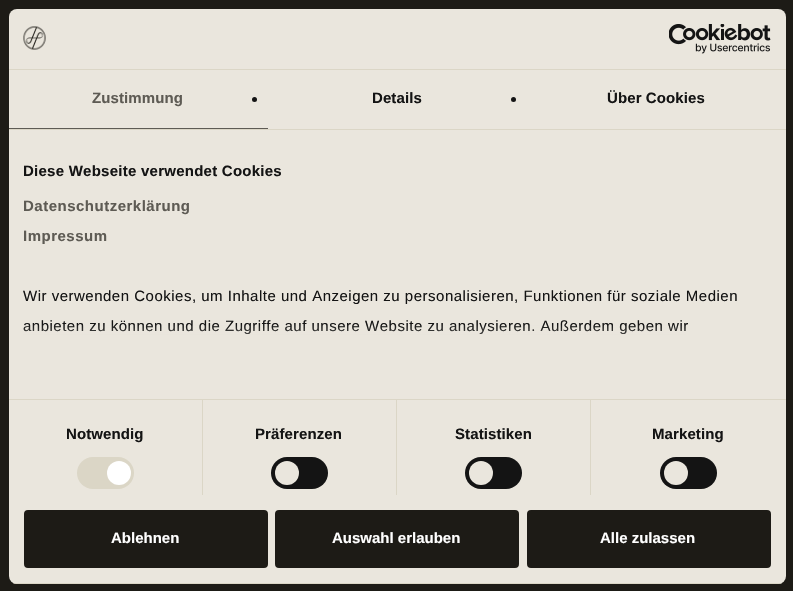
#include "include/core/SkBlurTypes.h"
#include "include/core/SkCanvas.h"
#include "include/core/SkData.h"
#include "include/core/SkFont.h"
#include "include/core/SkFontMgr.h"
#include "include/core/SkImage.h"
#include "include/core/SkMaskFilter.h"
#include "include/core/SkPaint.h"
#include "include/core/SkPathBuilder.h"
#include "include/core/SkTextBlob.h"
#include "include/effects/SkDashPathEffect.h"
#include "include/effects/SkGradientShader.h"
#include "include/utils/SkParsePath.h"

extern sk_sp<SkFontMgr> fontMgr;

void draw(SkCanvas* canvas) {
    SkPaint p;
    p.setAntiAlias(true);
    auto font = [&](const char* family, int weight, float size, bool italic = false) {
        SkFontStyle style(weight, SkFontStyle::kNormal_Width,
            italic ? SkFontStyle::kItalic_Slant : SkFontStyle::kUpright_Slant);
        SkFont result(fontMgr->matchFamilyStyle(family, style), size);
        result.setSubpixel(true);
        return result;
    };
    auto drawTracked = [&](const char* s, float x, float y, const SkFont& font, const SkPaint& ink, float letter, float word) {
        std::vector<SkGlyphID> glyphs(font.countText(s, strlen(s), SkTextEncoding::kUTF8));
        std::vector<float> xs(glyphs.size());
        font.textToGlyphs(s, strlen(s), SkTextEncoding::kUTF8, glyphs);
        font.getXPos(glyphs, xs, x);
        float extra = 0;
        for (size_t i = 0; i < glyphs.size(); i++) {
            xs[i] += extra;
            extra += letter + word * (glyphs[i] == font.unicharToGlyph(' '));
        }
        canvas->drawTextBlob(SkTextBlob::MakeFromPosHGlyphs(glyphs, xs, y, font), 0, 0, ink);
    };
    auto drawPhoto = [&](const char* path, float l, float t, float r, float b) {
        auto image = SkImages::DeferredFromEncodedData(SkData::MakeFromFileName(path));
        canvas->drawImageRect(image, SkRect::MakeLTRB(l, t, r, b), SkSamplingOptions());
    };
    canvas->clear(0xFF1D1B16);
    p.setColor(0xFFEAE6DD);
    canvas->drawRoundRect(SkRect::MakeLTRB(9, 9, 786, 584), 8, 8, p);
    p.setColor(0xFFDBD6C6);
    canvas->drawRect(SkRect::MakeLTRB(9, 69, 786, 70), p);
    drawPhoto("media/1.png", 23, 26, 46, 50);
    drawPhoto("media/2.png", 669, 24, 771, 54);
    canvas->drawRect(SkRect::MakeLTRB(9, 129, 786, 130), p);
    p.setColor(0xFF5E5B54);
    canvas->drawRect(SkRect::MakeLTRB(9, 128, 268, 129), p);
    auto font1 = font("Liberation Sans", 700, 15);
    drawTracked("Zustimmung", 92, 103, font1, p, 0.1f, 0);
    p.setColor(0xFF141414);
    canvas->drawCircle(254.5f, 99.5f, 2.5f, p);
    drawTracked("Details", 372, 103, font1, p, 0.1f, 0);
    canvas->drawCircle(513.5f, 99.5f, 2.5f, p);
    drawTracked("Über Cookies", 607, 103, font1, p, 0.1f, 0);
    p.setColor(0xFFDBD6C6);
    canvas->drawRect(SkRect::MakeLTRB(9, 399, 786, 400), p);
    p.setColor(0xFF141414);
    drawTracked("Diese Webseite verwendet Cookies", 23, 176, font1, p, 0.25f, 0);
    p.setColor(0xFF5E5B54);
    drawTracked("Datenschutzerklärung", 23, 211, font1, p, 0.5f, 0);
    drawTracked("Impressum", 23, 241, font1, p, 0.5f, 0);
    auto font2 = font("Liberation Sans", 400, 15);
    p.setColor(0xFF141414);
    drawTracked("Wir verwenden Cookies, um Inhalte und Anzeigen zu personalisieren, Funktionen für soziale Medien", 23, 301, font2, p, 0.5f, 0);
    drawTracked("anbieten zu können und die Zugriffe auf unsere Website zu analysieren. Außerdem geben wir", 23, 331, font2, p, 0.5f, 0);
    {
        const SkColor colors[] = {0xFFEAE6DD, 0xCCEAE6DD, 0x00EAE6DD};
        const float stops[] = {0, 0.5f, 1};
        const SkPoint ends[] = {{391, 399}, {391, 324}};
        p.setShader(SkGradientShader::MakeLinear(ends, colors, stops, 3, SkTileMode::kClamp));
        p.setAlpha(255);
    }
    canvas->drawRect(SkRect::MakeLTRB(23, 325, 686, 335), p);
    p.setShader(nullptr);
    p.setColor(0xFFDBD6C6);
    canvas->drawRect(SkRect::MakeLTRB(202, 400, 203, 495), p);
    p.setColor(0xFF141414);
    drawTracked("Notwendig", 66, 439, font1, p, 0.1f, 0);
    p.setColor(0xFFDBD6C6);
    canvas->drawRoundRect(SkRect::MakeLTRB(77, 457, 134, 489), 16, 16, p);
    p.setColor(0xFFFFFFFF);
    canvas->drawCircle(119, 473, 12, p);
    p.setColor(0xFFDBD6C6);
    canvas->drawRect(SkRect::MakeLTRB(396, 400, 397, 495), p);
    p.setColor(0xFF141414);
    drawTracked("Präferenzen", 255, 439, font1, p, 0.1f, 0);
    canvas->drawRoundRect(SkRect::MakeLTRB(271, 457, 328, 489), 16, 16, p);
    p.setColor(0xFFEAE6DD);
    canvas->drawCircle(287, 473, 12, p);
    p.setColor(0xFFDBD6C6);
    canvas->drawRect(SkRect::MakeLTRB(590, 400, 591, 495), p);
    p.setColor(0xFF141414);
    drawTracked("Statistiken", 455, 439, font1, p, 0.1f, 0);
    canvas->drawRoundRect(SkRect::MakeLTRB(465, 457, 522, 489), 16, 16, p);
    p.setColor(0xFFEAE6DD);
    canvas->drawCircle(481, 473, 12, p);
    p.setColor(0xFF141414);
    drawTracked("Marketing", 652, 439, font1, p, 0.1f, 0);
    canvas->drawRoundRect(SkRect::MakeLTRB(660, 457, 717, 489), 16, 16, p);
    p.setColor(0xFFEAE6DD);
    canvas->drawCircle(676, 473, 12, p);
    canvas->save();
    canvas->clipPath(SkPathBuilder().moveTo(17, 9).lineTo(778, 9).cubicTo(782.5f, 9, 786, 12.5f, 786, 17).lineTo(786, 576).cubicTo(786, 580.5f, 782.5f, 584, 778, 584).lineTo(17, 584).cubicTo(12.5f, 584, 9, 580.5f, 9, 576).lineTo(9, 17).cubicTo(9, 12.5f, 12.5f, 9, 17, 9).close().detach(), true);
    p.setColor(0xFFDBD6C6);
    canvas->drawRect(SkRect::MakeLTRB(9, 583, 786, 584), p);
    canvas->restore();
    p.setColor(0xFF1D1B16);
    canvas->drawRoundRect(SkRect::MakeLTRB(25, 511, 267, 567), 3, 3, p);
    p.setStyle(SkPaint::kStroke_Style);
    p.setStrokeWidth(2);
    canvas->drawRoundRect(SkRect::MakeLTRB(25, 511, 267, 567), 3, 3, p);
    p.setStyle(SkPaint::kFill_Style);
    p.setColor(0xFFFFFFFF);
    canvas->drawString("Ablehnen", 111, 543, font1, p);
    p.setColor(0xFF1D1B16);
    canvas->drawRoundRect(SkRect::MakeLTRB(276, 511, 518, 567), 3, 3, p);
    p.setStyle(SkPaint::kStroke_Style);
    canvas->drawRoundRect(SkRect::MakeLTRB(276, 511, 518, 567), 3, 3, p);
    p.setStyle(SkPaint::kFill_Style);
    p.setColor(0xFFFFFFFF);
    canvas->drawString("Auswahl erlauben", 332, 543, font1, p);
    p.setColor(0xFF1D1B16);
    canvas->drawRoundRect(SkRect::MakeLTRB(528, 511, 770, 567), 3, 3, p);
    p.setStyle(SkPaint::kStroke_Style);
    canvas->drawRoundRect(SkRect::MakeLTRB(528, 511, 770, 567), 3, 3, p);
    p.setStyle(SkPaint::kFill_Style);
    p.setColor(0xFFFFFFFF);
    canvas->drawString("Alle zulassen", 600, 543, font1, p);
}
